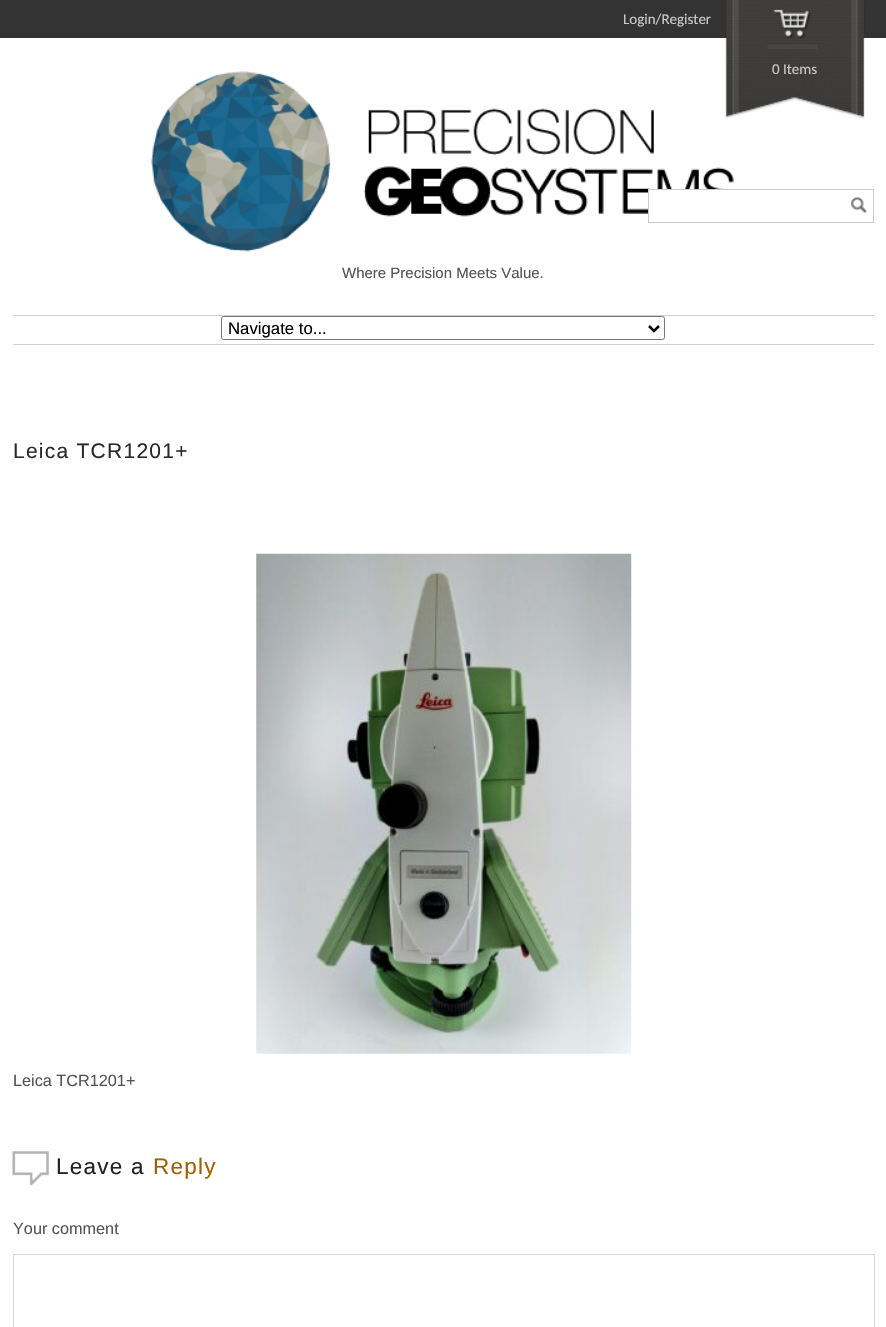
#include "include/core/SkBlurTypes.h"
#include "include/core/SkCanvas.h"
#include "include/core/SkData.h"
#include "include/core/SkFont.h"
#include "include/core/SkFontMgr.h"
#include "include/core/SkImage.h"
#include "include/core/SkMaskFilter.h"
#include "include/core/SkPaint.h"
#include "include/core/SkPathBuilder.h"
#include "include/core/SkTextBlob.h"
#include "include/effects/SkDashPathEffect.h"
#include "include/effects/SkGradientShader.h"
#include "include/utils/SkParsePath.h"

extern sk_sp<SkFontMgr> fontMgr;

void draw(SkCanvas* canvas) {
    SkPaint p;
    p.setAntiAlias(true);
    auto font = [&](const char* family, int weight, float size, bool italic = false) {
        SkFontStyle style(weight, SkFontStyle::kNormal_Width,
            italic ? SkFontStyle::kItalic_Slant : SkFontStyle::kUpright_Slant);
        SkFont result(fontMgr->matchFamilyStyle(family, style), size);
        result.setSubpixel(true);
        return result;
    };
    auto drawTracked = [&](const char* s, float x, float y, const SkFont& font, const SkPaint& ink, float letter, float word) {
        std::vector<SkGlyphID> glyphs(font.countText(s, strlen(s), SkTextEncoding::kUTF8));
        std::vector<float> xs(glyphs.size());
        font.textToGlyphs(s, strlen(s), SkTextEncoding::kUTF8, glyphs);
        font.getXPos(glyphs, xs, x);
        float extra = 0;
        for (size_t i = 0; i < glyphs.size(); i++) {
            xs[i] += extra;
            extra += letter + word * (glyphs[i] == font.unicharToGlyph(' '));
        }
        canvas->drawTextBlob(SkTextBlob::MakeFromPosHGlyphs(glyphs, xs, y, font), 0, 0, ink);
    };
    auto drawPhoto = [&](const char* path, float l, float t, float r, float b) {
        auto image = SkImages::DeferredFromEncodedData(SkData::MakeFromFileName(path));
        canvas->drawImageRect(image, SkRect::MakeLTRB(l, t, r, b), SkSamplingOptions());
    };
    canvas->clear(0xFFFFFFFF);
    p.setColor(0xFF333333);
    canvas->drawRect(SkRect::MakeLTRB(0, 0, 886, 38), p);
    auto font1 = font("Carlito", 400, 15);
    p.setColor(0xFFCCCACA);
    canvas->drawString("Login/Register", 623, 24, font1, p);
    drawPhoto("media/3.png", 151, 71, 734, 252);
    drawPhoto("media/1.png", 725, 0, 865, 119);
    canvas->drawString("0 Items", 772, 74, font1, p);
    p.setColor(0xFFFFFFFF);
    canvas->drawRect(SkRect::MakeLTRB(649, 190, 734, 216), p);
    p.setStyle(SkPaint::kStroke_Style);
    p.setStrokeWidth(1);
    p.setColor(0xFFCCCCCC);
    canvas->drawRect(SkRect::MakeLTRB(648.5f, 189.5f, 873.5f, 222.5f), p);
    drawPhoto("media/2.png", 851, 197, 867, 213);
    auto font2 = font("Liberation Sans", 400, 15);
    p.setStyle(SkPaint::kFill_Style);
    p.setColor(0xFF545252);
    canvas->drawString("Where Precision Meets Value.", 342, 278, font2, p);
    p.setColor(0xFFCFCFCF);
    canvas->drawRect(SkRect::MakeLTRB(13, 315, 874, 316), p);
    canvas->drawRect(SkRect::MakeLTRB(13, 344, 874, 345), p);
    p.setStyle(SkPaint::kStroke_Style);
    p.setColor(0xFF767676);
    canvas->drawRoundRect(SkRect::MakeLTRB(221.5f, 316.5f, 664.5f, 339.5f), 2, 2, p);
    p.setStrokeWidth(2.5f);
    p.setColor(0xFF000000);
    canvas->drawPath(SkPathBuilder().moveTo(649, 326).lineTo(654, 331).lineTo(659, 326).detach(), p);
    auto font3 = font("Liberation Sans", 400, 16.75f);
    p.setStyle(SkPaint::kFill_Style);
    canvas->drawString("Navigate to...", 228, 334, font3, p);
    auto font4 = font("Liberation Sans", 400, 21);
    p.setColor(0xFF2B2828);
    drawTracked("Leica TCR1201+", 13, 458, font4, p, 1.25f, 0);
    drawPhoto("media/4.png", 256, 553, 632, 1054);
    auto font5 = font("Liberation Sans", 400, 16.25f);
    p.setColor(0xFF545252);
    canvas->drawString("Leica TCR1201+", 13, 1086, font5, p);
    drawPhoto("media/5.png", 12, 1151, 49, 1185);
    auto font6 = font("Liberation Sans", 400, 22.5f);
    p.setColor(0xFF232221);
    drawTracked("Leave a", 56, 1174, font6, p, 1.25f, 0);
    p.setColor(0xFFA05F02);
    drawTracked("Reply", 153, 1174, font6, p, 1.25f, 0);
    p.setColor(0xFF545252);
    canvas->drawString("Your comment", 13, 1234, font5, p);
    p.setStyle(SkPaint::kStroke_Style);
    p.setStrokeWidth(1);
    p.setColor(0xFFD8D7D7);
    canvas->drawRect(SkRect::MakeLTRB(13.5f, 1254.5f, 874.5f, 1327.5f), p);
}
